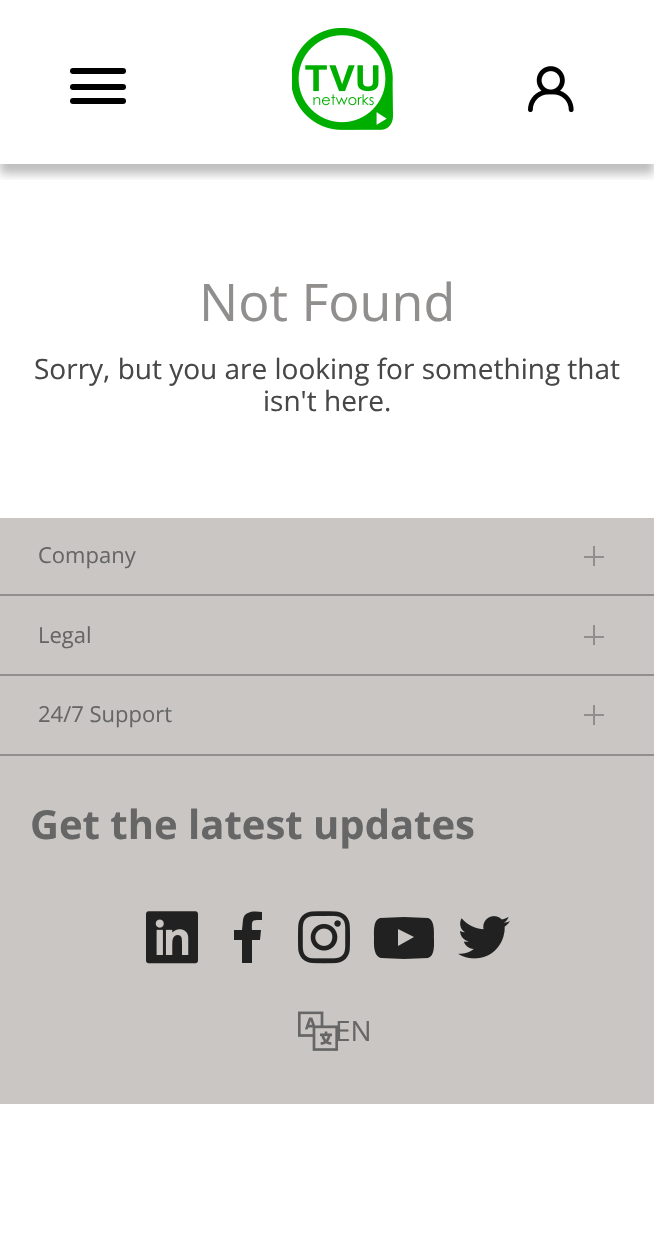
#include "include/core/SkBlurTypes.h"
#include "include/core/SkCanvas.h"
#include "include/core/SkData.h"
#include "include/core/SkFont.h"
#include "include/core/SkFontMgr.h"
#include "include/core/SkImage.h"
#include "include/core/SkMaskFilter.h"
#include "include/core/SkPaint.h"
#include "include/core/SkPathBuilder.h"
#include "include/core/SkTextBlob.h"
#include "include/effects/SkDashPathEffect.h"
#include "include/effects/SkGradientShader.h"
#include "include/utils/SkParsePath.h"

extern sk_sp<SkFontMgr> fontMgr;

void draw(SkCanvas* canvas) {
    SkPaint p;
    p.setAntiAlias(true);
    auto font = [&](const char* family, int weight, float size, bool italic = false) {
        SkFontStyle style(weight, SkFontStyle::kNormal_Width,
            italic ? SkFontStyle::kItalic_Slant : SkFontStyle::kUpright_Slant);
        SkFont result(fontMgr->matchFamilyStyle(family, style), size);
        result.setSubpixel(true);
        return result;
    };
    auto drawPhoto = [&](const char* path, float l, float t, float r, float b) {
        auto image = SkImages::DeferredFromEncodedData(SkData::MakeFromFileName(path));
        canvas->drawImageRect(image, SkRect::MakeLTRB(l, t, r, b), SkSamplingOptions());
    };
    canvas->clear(0xFFFFFFFF);
    canvas->save();
    canvas->clipRect(SkRect::MakeLTRB(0, 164, 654, 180));
    p.setColor(0x40000000);
    p.setMaskFilter(SkMaskFilter::MakeBlur(kNormal_SkBlurStyle, 4.5f));
    canvas->drawRect(SkRect::MakeLTRB(0, 10, 654, 174), p);
    p.setMaskFilter(nullptr);
    canvas->restore();
    p.setColor(0xFF000000);
    canvas->drawRoundRect(SkRect::MakeLTRB(70, 68, 126, 74), 3, 3, p);
    canvas->drawRoundRect(SkRect::MakeLTRB(70, 84, 126, 90), 3, 3, p);
    canvas->drawRoundRect(SkRect::MakeLTRB(70, 98, 126, 104), 3, 3, p);
    drawPhoto("media/1.png", 292, 28, 393, 130);
    drawPhoto("media/2.png", 528, 66, 574, 113);
    auto font1 = font("Open Sans", 400, 52);
    p.setColor(0xFF918F8E);
    canvas->drawString("Not Found", 199, 321, font1, p);
    auto font2 = font("Open Sans", 400, 28);
    p.setColor(0xFF474747);
    canvas->drawString("Sorry, but you are looking for something that", 34, 379, font2, p);
    canvas->drawString("isn't here.", 263, 411, font2, p);
    p.setColor(0xFFC9C6C3);
    canvas->drawRect(SkRect::MakeLTRB(0, 518, 654, 1104), p);
    p.setColor(0xFF918F8E);
    canvas->drawRect(SkRect::MakeLTRB(0, 594, 654, 596), p);
    auto font3 = font("Open Sans", 400, 22);
    p.setColor(0xFF666666);
    canvas->drawString("Company", 38, 563, font3, p);
    {
        const struct { float l, t, r, b; SkColor color; } items[] = {
            {584, 556, 604, 558, 0xFF918F8E},
            {593, 546, 595, 566, 0xFF918F8E},
            {0, 674, 654, 676, 0xFF918F8E},
        };
        for (auto [l, t, r, b, color] : items) {
            p.setColor(color);
            canvas->drawRect(SkRect::MakeLTRB(l, t, r, b), p);
        }
    }
    p.setColor(0xFF666666);
    canvas->drawString("Legal", 38, 643, font3, p);
    {
        const struct { float l, t, r, b; SkColor color; } items[] = {
            {584, 636, 604, 638, 0xFF918F8E},
            {593, 625, 595, 645, 0xFF918F8E},
            {0, 754, 654, 756, 0xFF918F8E},
        };
        for (auto [l, t, r, b, color] : items) {
            p.setColor(color);
            canvas->drawRect(SkRect::MakeLTRB(l, t, r, b), p);
        }
    }
    p.setColor(0xFF666666);
    canvas->drawString("24/7 Support", 38, 722, font3, p);
    p.setColor(0xFF918F8E);
    canvas->drawRect(SkRect::MakeLTRB(584, 714, 604, 716), p);
    canvas->drawRect(SkRect::MakeLTRB(593, 705, 595, 725), p);
    auto font4 = font("Open Sans", 700, 40);
    p.setColor(0xFF666666);
    canvas->drawString("Get the latest updates", 30, 839, font4, p);
    drawPhoto("media/3.png", 146, 911, 198, 964);
    p.setColor(0xFF212121);
    canvas->drawPath(SkPathBuilder().moveTo(262, 912).cubicTo(254, 911, 244, 911, 243, 920).lineTo(242, 930).lineTo(234, 930).lineTo(234, 940).lineTo(242, 940).lineTo(242, 963).lineTo(252, 963).lineTo(252, 940).lineTo(260, 940).lineTo(261, 930).lineTo(252, 930).cubicTo(252, 920, 251, 920, 262, 920).close().detach(), p);
    drawPhoto("media/4.png", 298, 911, 350, 964);
    canvas->drawPath(SkPathBuilder().moveTo(398, 946).lineTo(398, 929).lineTo(414, 937).close().moveTo(404, 917).lineTo(380, 918).cubicTo(373, 920, 374, 932, 374, 937).cubicTo(374, 943, 373, 956, 381, 958).lineTo(404, 959).lineTo(428, 958).cubicTo(435, 956, 434, 944, 434, 939).cubicTo(434, 933, 435, 920, 428, 918).close().detach(), p);
    drawPhoto("media/5.png", 458, 916, 510, 959);
    p.setColor(0xFF666666);
    canvas->drawString("EN", 335, 1041, font2, p);
    drawPhoto("media/6.png", 298, 1011, 338, 1051);
}
